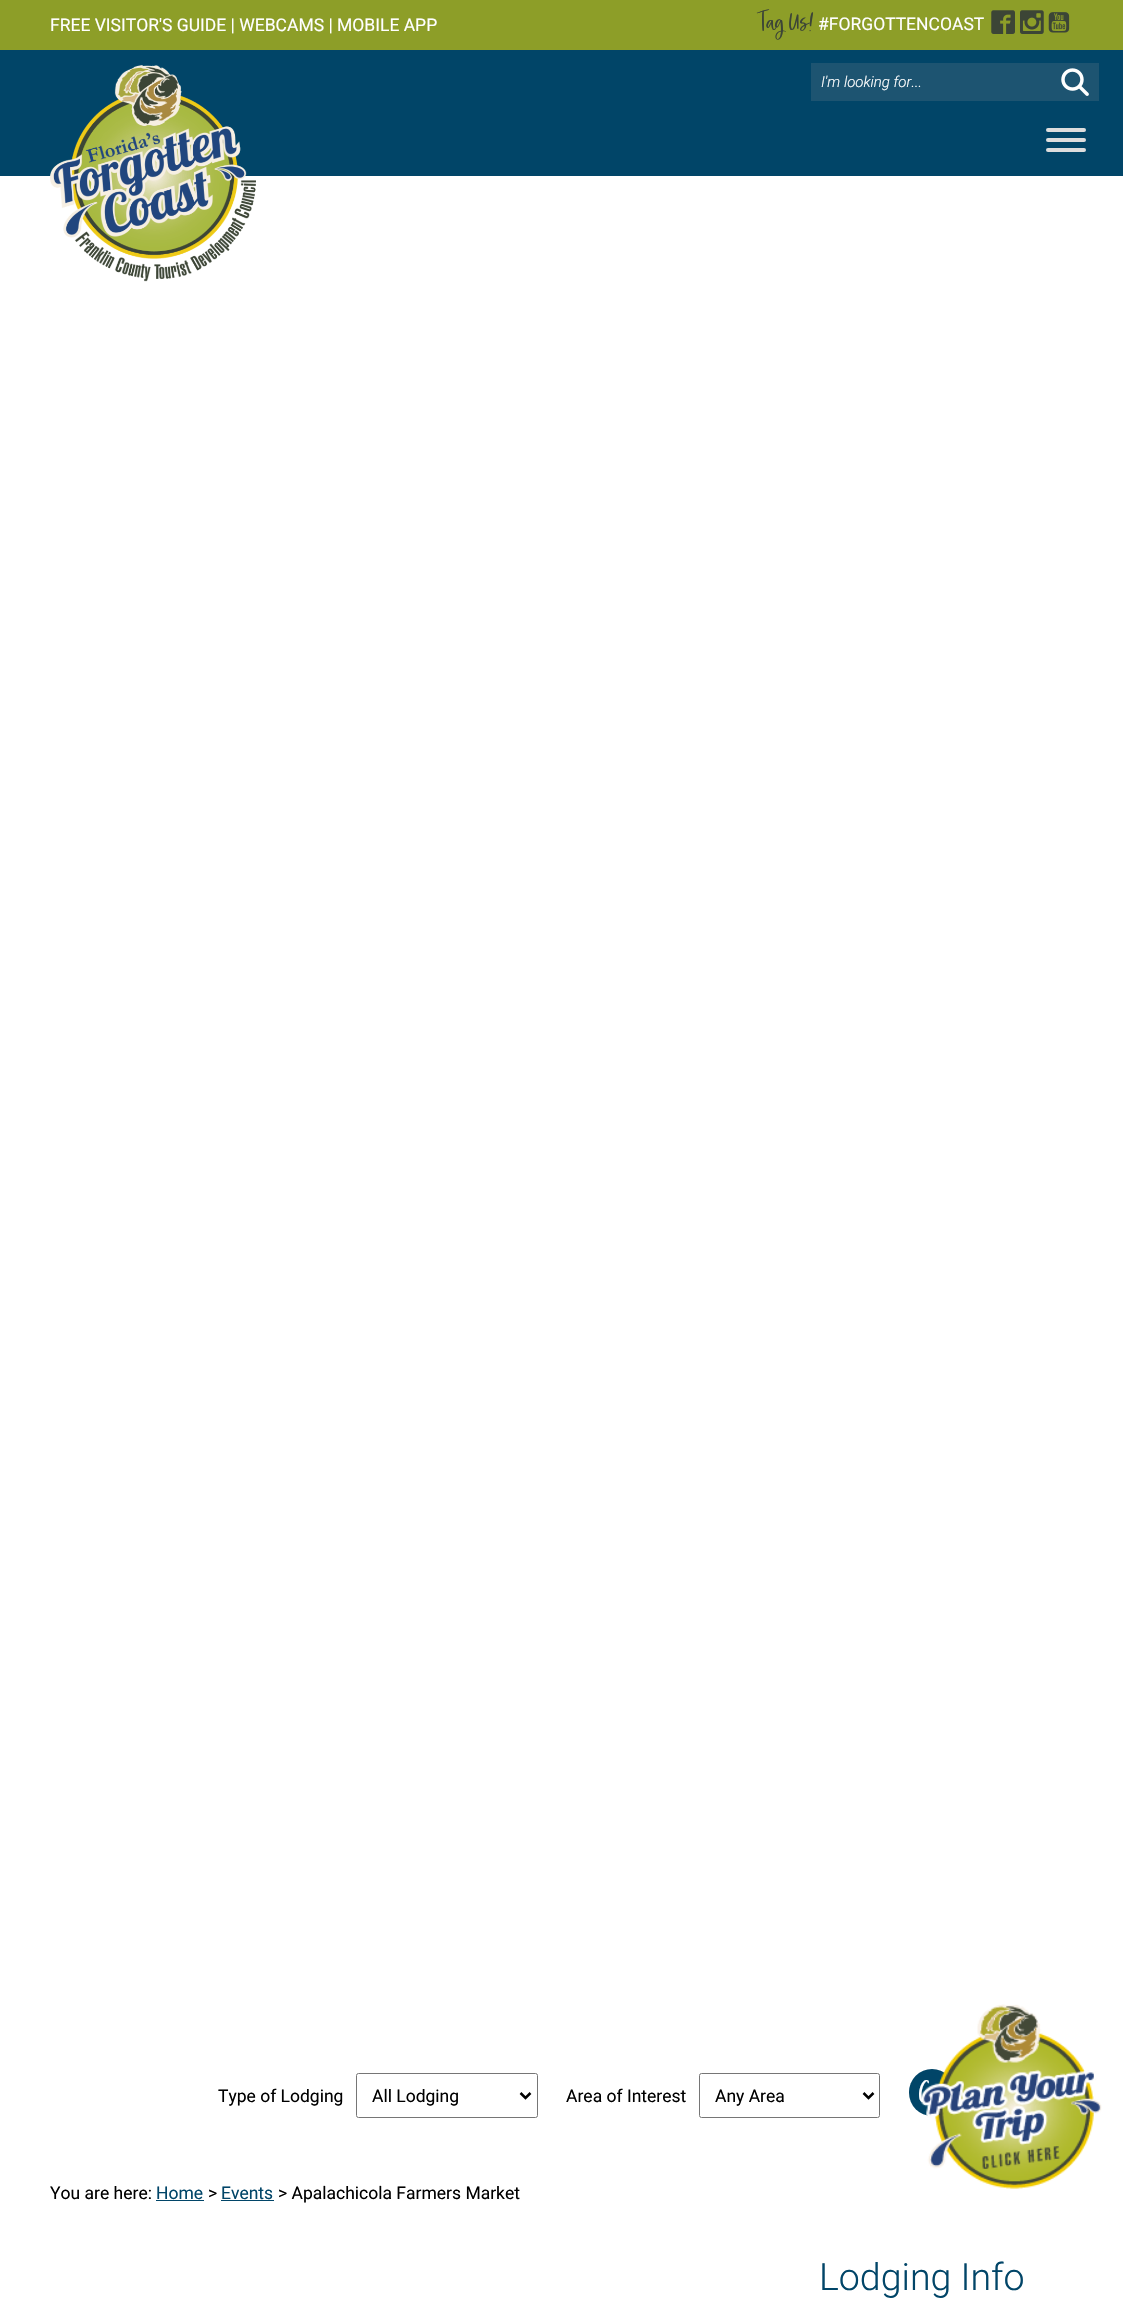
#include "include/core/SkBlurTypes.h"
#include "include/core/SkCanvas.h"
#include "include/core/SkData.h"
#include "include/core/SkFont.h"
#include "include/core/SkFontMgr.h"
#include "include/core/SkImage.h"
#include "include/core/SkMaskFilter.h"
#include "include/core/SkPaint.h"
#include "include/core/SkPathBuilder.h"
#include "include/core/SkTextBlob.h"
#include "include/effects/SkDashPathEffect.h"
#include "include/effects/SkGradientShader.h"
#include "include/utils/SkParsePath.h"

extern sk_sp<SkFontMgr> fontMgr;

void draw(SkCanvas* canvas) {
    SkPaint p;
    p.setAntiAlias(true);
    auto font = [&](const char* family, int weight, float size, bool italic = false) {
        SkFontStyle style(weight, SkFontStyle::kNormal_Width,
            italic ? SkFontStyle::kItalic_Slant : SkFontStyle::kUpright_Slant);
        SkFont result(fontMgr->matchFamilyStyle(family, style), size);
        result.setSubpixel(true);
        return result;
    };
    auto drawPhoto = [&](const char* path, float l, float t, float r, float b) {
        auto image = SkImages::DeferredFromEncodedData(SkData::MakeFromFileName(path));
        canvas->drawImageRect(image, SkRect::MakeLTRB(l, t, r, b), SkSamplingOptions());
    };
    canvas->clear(0xFFFFFFFF);
    p.setColor(0xFF8D9E28);
    canvas->drawRect(SkRect::MakeLTRB(0, 0, 1123, 50), p);
    auto font1 = font("Roboto", 400, 17.5f);
    p.setColor(0xFFFFFFFF);
    canvas->drawString("FREE VISITOR'S GUIDE | WEBCAMS | MOBILE APP", 50, 31, font1, p);
    auto font2 = font("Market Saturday", 500, 28);
    p.setColor(0xFF3C4536);
    canvas->drawString("Tag Us!", 759, 30, font2, p);
    p.setColor(0xFFFFFFFF);
    canvas->drawString("#FORGOTTENCOAST", 818, 30, font1, p);
    drawPhoto("media/1.png", 991, 10, 1015, 34);
    drawPhoto("media/2.png", 1020, 10, 1044, 34);
    drawPhoto("media/3.png", 1048, 12, 1070, 33);
    p.setColor(0xFF014568);
    canvas->drawRect(SkRect::MakeLTRB(0, 50, 1123, 176), p);
    drawPhoto("media/4.png", 50, 65, 256, 282);
    p.setColor(0xFF1D5471);
    canvas->drawRect(SkRect::MakeLTRB(811, 63, 1099, 101), p);
    auto font3 = font("Roboto", 300, 15, true);
    p.setColor(0xFFFFFFFF);
    canvas->drawString("I'm looking for...", 821, 87, font3, p);
    drawPhoto("media/5.png", 1061, 68, 1089, 96);
    p.setColor(0xFFDDDDDD);
    canvas->drawRoundRect(SkRect::MakeLTRB(1046, 128, 1086, 132), 2, 2, p);
    canvas->drawRoundRect(SkRect::MakeLTRB(1046, 138, 1086, 142), 2, 2, p);
    canvas->drawRoundRect(SkRect::MakeLTRB(1046, 148, 1086, 152), 2, 2, p);
    p.setColor(0xFF000000);
    canvas->drawString("Type of Lodging", 218, 2102, font1, p);
    p.setStyle(SkPaint::kStroke_Style);
    p.setStrokeWidth(1);
    p.setColor(0xFF767676);
    canvas->drawRoundRect(SkRect::MakeLTRB(356.5f, 2073.5f, 537.5f, 2117.5f), 2, 2, p);
    p.setStrokeWidth(2.5f);
    p.setColor(0xFF000000);
    canvas->drawPath(SkPathBuilder().moveTo(520.5f, 2093).lineTo(525.5f, 2098).lineTo(530.5f, 2093).detach(), p);
    p.setStyle(SkPaint::kFill_Style);
    canvas->drawString("All Lodging", 372, 2102, font1, p);
    canvas->drawString("Area of Interest", 566, 2102, font1, p);
    p.setStyle(SkPaint::kStroke_Style);
    p.setStrokeWidth(1);
    p.setColor(0xFF767676);
    canvas->drawRoundRect(SkRect::MakeLTRB(699.5f, 2073.5f, 879.5f, 2117.5f), 2, 2, p);
    p.setStrokeWidth(2.5f);
    p.setColor(0xFF000000);
    canvas->drawPath(SkPathBuilder().moveTo(863.5f, 2093).lineTo(868.5f, 2098).lineTo(873.5f, 2093).detach(), p);
    p.setStyle(SkPaint::kFill_Style);
    canvas->drawString("Any Area", 715, 2102, font1, p);
    p.setColor(0xFF014568);
    canvas->drawRoundRect(SkRect::MakeLTRB(909, 2069, 955, 2116), 23, 23, p);
    auto font4 = font("Market Saturday", 500, 32);
    p.setColor(0xFFFFFFFF);
    canvas->drawString("G", 919, 2102, font4, p);
    p.setColor(0xFF000000);
    canvas->drawString("You are here:", 50, 2199, font1, p);
    p.setColor(0xFF014568);
    canvas->drawString("Home", 156, 2199, font1, p);
    canvas->drawRect(SkRect::MakeLTRB(156, 2200, 204, 2201), p);
    p.setColor(0xFF000000);
    canvas->drawString(">", 208, 2199, font1, p);
    p.setColor(0xFF014568);
    canvas->drawString("Events", 221, 2199, font1, p);
    canvas->drawRect(SkRect::MakeLTRB(221, 2200, 274, 2201), p);
    p.setColor(0xFF000000);
    canvas->drawString("> Apalachicola Farmers Market", 278, 2199, font1, p);
    auto font5 = font("Roboto", 300, 37.5f);
    p.setColor(0xFF014568);
    canvas->drawString("Lodging Info", 819, 2290, font5, p);
    drawPhoto("media/6.png", 921, 2004, 1102, 2189);
}
